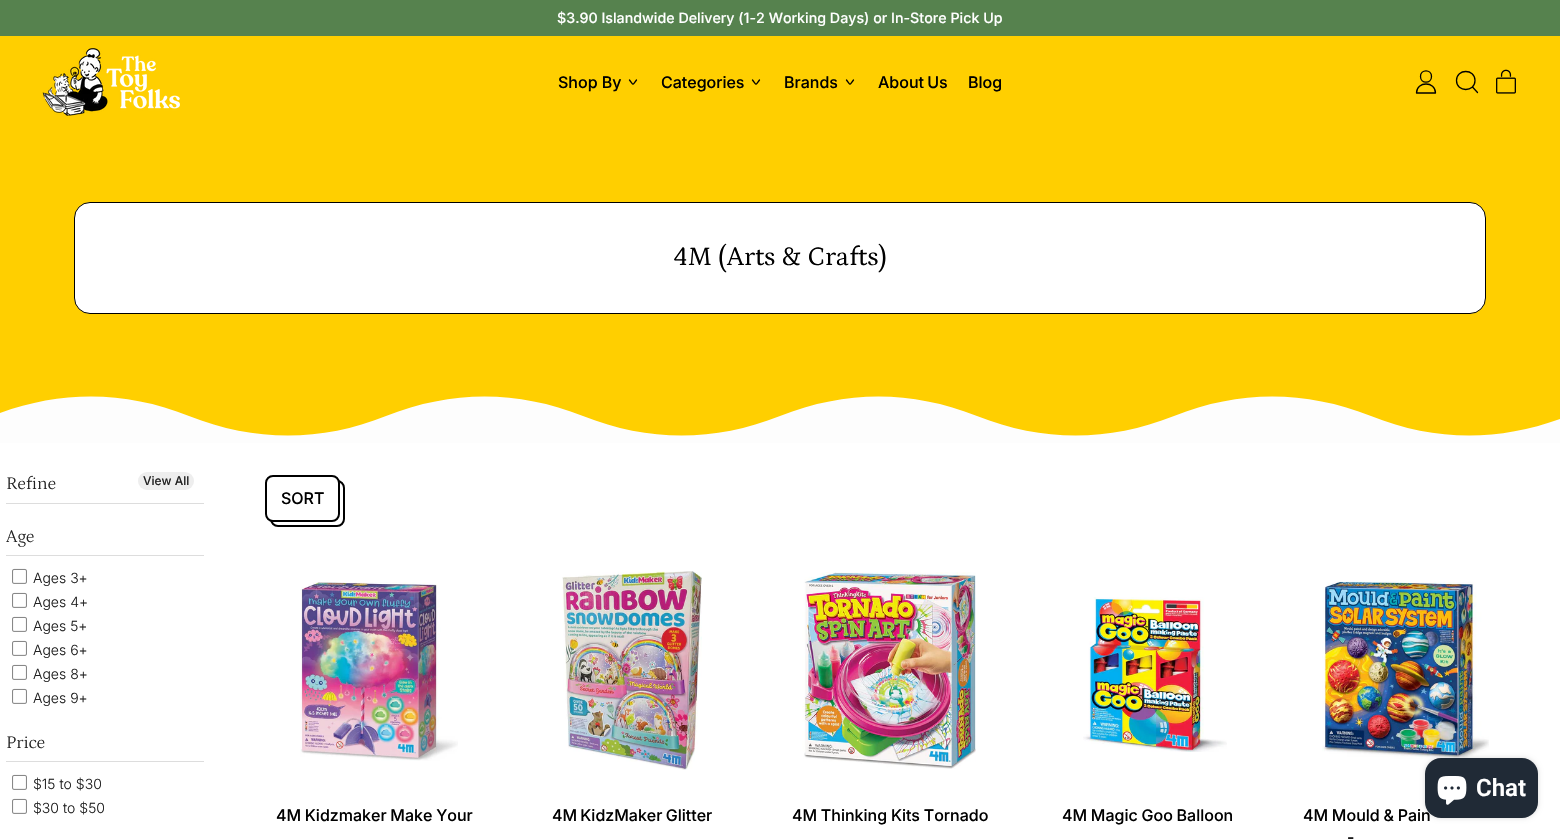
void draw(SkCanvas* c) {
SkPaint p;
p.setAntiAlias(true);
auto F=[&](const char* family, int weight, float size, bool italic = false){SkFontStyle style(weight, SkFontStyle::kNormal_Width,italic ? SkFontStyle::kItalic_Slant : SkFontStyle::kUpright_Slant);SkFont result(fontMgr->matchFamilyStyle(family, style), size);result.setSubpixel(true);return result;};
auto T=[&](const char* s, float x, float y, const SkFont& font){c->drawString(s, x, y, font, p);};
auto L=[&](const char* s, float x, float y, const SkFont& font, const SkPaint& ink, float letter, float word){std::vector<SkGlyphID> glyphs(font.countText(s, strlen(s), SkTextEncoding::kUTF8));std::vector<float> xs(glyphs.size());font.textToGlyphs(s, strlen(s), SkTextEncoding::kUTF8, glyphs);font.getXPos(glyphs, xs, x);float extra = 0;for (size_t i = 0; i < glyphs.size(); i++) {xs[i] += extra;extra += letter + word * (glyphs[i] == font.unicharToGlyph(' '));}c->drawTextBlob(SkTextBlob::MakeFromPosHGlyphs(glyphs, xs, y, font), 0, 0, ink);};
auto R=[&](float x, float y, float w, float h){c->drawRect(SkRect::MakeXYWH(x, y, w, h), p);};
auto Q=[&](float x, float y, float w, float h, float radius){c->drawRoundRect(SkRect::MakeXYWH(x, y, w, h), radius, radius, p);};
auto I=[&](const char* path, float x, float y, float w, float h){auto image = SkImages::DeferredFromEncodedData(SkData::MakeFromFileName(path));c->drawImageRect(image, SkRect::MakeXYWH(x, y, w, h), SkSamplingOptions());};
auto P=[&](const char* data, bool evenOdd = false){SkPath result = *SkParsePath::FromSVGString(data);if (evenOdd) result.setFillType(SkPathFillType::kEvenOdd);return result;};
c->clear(0xffffcf00);
p.setColor(0xff56824e);
R(0,0,1560,36);
auto f1 = F("Inter",500,14.25);
p.setColor(0xffffffff);
T("$3.90 Islandwide Delivery (1-2 Working Days) or In-Store Pick Up",557,23,f1);
I("1.png",42,48,138,68);
auto f2 = F("Inter",500,16);
p.setColor(0xff000000);
T("Shop By",558,88,f2);
p.setStroke(true);
p.setStrokeWidth(1.3);
p.setStrokeCap(SkPaint::kRound_Cap);
p.setStrokeJoin(SkPaint::kRound_Join);
c->drawPath(P("M629.5 80c4.5 5.5 2.5 5.5 7 0"),p);
p.setStroke(false);
T("Categories",661,88,f2);
p.setStroke(true);
c->drawPath(P("M752.5 80c4.5 5.5 2.5 5.5 7 0"),p);
p.setStroke(false);
T("Brands",784,88,f2);
p.setStroke(true);
c->drawPath(P("M846.5 80c4.5 5.5 2.5 5.5 7 0"),p);
p.setStroke(false);
L("About Us",878,88,f2,p,0,-1);
T("Blog",968,88,f2);
p.setStroke(true);
c->drawPath(P("M1420.5 76.5c0 7.5 11 7.5 11 0c0-7.5-11-7.5-11 0zm-4 16.5c0-12 19-12 19 0z"),p);
c->drawPath(P("M1456.5 80.5c0 12 18.5 12 18.5 0c0-12-18.5-12-18.5 0zm21 12l-5-5.5"),p);
I("2.png",1496,69,20,25);
p.setStroke(false);
p.setColor(0xffffffff);
c->drawRoundRect(SkRect::MakeXYWH(74.5,202.5,1411,111),15.5,15.5,p);
p.setStroke(true);
p.setStrokeWidth(1);
p.setStrokeCap(SkPaint::kButt_Cap);
p.setStrokeJoin(SkPaint::kMiter_Join);
p.setColor(0xff000000);
c->drawRoundRect(SkRect::MakeXYWH(74.5,202.5,1411,111),15.5,15.5,p);
auto f3 = F("Petrona",400,27);
p.setStroke(false);
T("4M (Arts & Crafts)",674,265,f3);
c->save();
c->clipRect(SkRect::MakeXYWH(0,390,1560,53));
p.setColor(0xfffdfdfd);
c->drawPath(P("M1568 416c-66 26-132 26-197 0c-66-26-132-26-197 0c-66 26-131 26-197 0c-66-26-131-26-197 0c-66 26-131 26-197 0c-66-26-131-26-197 0c-65 26-131 26-197 0c-65-26-131-26-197 0v30h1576z"),p);
c->restore();
p.setColor(0xffffffff);
R(0,443,1560,396);
p.setColor(0xffdddddd);
R(6,503,198,1);
auto f4 = F("Petrona",300,18);
p.setColor(0xff222222);
T("Refine",6,489,f4);
p.setColor(0xffeeeeee);
Q(138,472,56,18,9);
auto f5 = F("Inter",500,12);
p.setColor(0xff222222);
T("View All",143,485,f5);
p.setColor(0xffdddddd);
R(6,555,198,1);
p.setColor(0xff222222);
T("Age",6,542,f4);
I("3.png",12,568,15,16);
auto f6 = F("Inter",300,14);
T("Ages 3+",33,583,f6);
I("3.png",12,592,15,16);
T("Ages 4+",33,607,f6);
I("3.png",12,616,15,16);
T("Ages 5+",33,631,f6);
I("3.png",12,640,15,16);
T("Ages 6+",33,655,f6);
I("3.png",12,664,15,16);
T("Ages 8+",33,679,f6);
I("3.png",12,688,15,16);
T("Ages 9+",33,703,f6);
p.setColor(0xffdddddd);
R(6,761,198,1);
p.setColor(0xff222222);
T("Price",6,748,f4);
I("3.png",12,774,15,16);
T("$15 to $30",33,789,f6);
I("3.png",12,798,15,16);
T("$30 to $50",33,813,f6);
p.setStroke(true);
p.setStrokeWidth(2);
p.setColor(0xff000000);
c->drawRoundRect(SkRect::MakeXYWH(271,481,73,45),7,7,p);
p.setStroke(false);
p.setColor(0xffffffff);
c->drawRoundRect(SkRect::MakeXYWH(266,476,73,45),7,7,p);
p.setStroke(true);
p.setColor(0xff000000);
c->drawRoundRect(SkRect::MakeXYWH(266,476,73,45),7,7,p);
p.setStroke(false);
T("SORT",281,504,f2);
I("4.png",300,582,158,179);
L("4M Kidzmaker Make Your",276,821,f2,p,0,-.5);
I("5.png",562,571,140,199);
L("4M KidzMaker Glitter",552,821,f2,p,0,-1);
I("6.png",802,572,174,197);
L("4M Thinking Kits Tornado",792,821,f2,p,0,-.5);
I("7.png",1083,597,144,155);
L("4M Magic Goo Balloon",1062,821,f2,p,0,-.5);
I("8.png",1322,581,167,178);
L("4M Mould & Pain",1303,821,f2,p,0,-.5);
L("-",1347,843,f2,p,0,-1);
p.setColor(0x26000000);
p.setMaskFilter(SkMaskFilter::MakeBlur(kNormal_SkBlurStyle, 2.5));
c->drawRoundRect(SkRect::MakeXYWH(1425,758,113,60),16,16,p);
p.setMaskFilter(nullptr);
p.setColor(0xff202a36);
Q(1425,758,113,60,16);
I("9.png",1437,776,30,29);
auto f7 = F("Roboto",600,24);
p.setColor(0xffffffff);
T("Chat",1476,796,f7);
}
